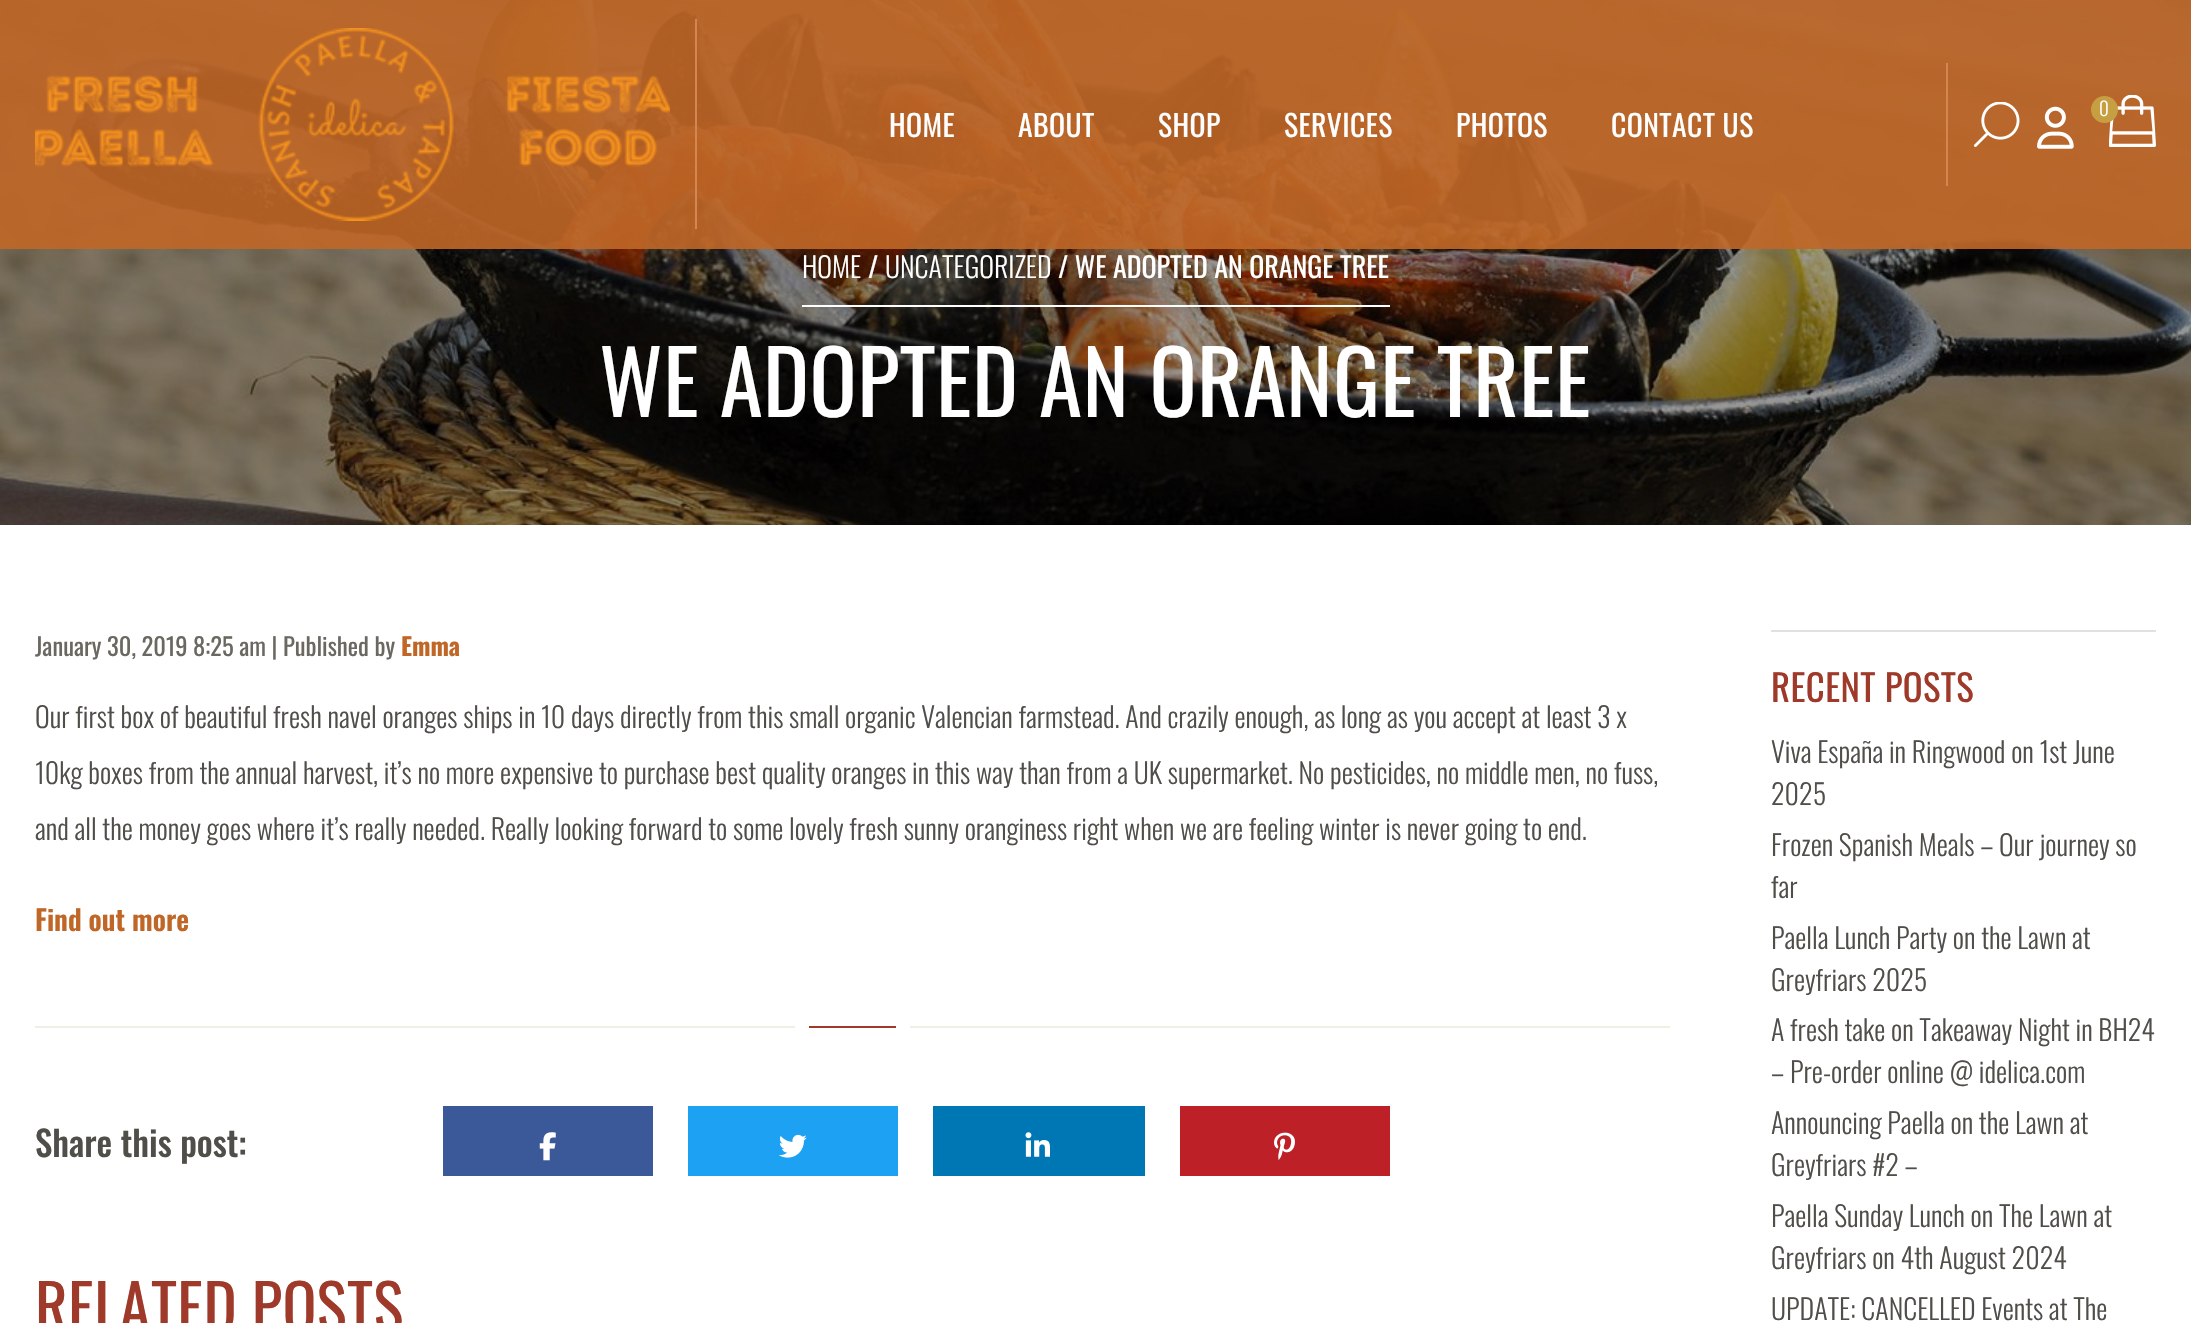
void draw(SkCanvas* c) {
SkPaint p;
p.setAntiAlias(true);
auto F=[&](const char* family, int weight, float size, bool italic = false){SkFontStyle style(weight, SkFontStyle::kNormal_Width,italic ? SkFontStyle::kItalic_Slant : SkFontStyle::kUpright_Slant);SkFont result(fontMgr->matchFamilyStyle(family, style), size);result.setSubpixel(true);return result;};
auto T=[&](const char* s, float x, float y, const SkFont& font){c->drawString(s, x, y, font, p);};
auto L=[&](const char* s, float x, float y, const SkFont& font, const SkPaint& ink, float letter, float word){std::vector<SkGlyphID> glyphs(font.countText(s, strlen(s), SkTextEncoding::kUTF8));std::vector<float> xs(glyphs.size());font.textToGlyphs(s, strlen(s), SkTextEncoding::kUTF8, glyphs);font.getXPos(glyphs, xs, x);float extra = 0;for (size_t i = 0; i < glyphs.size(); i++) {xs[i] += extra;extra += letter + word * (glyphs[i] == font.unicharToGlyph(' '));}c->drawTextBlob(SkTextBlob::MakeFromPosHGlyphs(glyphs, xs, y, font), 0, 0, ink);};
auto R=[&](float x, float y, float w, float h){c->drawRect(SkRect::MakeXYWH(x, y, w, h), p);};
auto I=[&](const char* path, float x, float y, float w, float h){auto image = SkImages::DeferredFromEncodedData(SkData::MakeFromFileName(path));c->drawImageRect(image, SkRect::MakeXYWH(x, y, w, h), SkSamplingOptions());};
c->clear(0xffffffff);
I("5.png",0,0,2191,525);
p.setColor(0xe6c06626);
R(0,0,2191,249);
I("1.png",35,28,635,193);
p.setColor(0xffd3864f);
R(695,19,2,210);
R(1946,63,2,123);
I("2.png",1974,102,46,45);
I("3.png",2037,106,37,43);
I("4.png",2109,95,47,52);
p.setColor(0xffc69f42);
c->drawCircle(2104.5,109.5,13.5,p);
auto f1 = F("Oswald",300,19);
p.setColor(0xffffffff);
T("0",2099,116,f1);
auto f2 = F("Oswald",400,29.75);
L("HOME",889,137,f2,p,.4,0);
L("ABOUT",1018,137,f2,p,.4,0);
L("SHOP",1158,137,f2,p,.4,0);
L("SERVICES",1284,137,f2,p,.4,0);
L("PHOTOS",1456,137,f2,p,.4,0);
L("CONTACT US",1611,137,f2,p,.4,0);
R(802,305,588,2);
auto f3 = F("Oswald",300,28);
T("HOME",802,278,f3);
auto f4 = F("Oswald",400,28);
T("/",868,278,f4);
T("UNCATEGORIZED",885,278,f3);
T("/ WE ADOPTED AN ORANGE TREE",1058,278,f4);
auto f5 = F("Oswald",400,87.5);
L("WE ADOPTED AN ORANGE TREE",599,417,f5,p,.4,0);
auto f6 = F("Oswald",400,24.5);
p.setColor(0xff6a6861);
T("January 30, 2019 8:25 am | Published by",35,656,f6);
auto f7 = F("Oswald",700,24.5);
p.setColor(0xffc06626);
T("Emma",401,656,f7);
p.setColor(0xff4f4e49);
T("Our first box of beautiful fresh navel oranges ships in 10 days directly from this small organic Valencian farmstead. And crazily enough, as long as you accept at least 3 x",35,728,f3);
T("10kg boxes from the annual harvest, it’s no more expensive to purchase best quality oranges in this way than from a UK supermarket. No pesticides, no middle men, no fuss,",35,784,f3);
T("and all the money goes where it’s really needed. Really looking forward to some lovely fresh sunny oranginess right when we are feeling winter is never going to end.",35,840,f3);
auto f8 = F("Oswald",600,28);
p.setColor(0xffc06626);
T("Find out more",35,931,f8);
p.setColor(0xfff0efe4);
R(35,1026,1635,2);
p.setStroke(true);
p.setStrokeWidth(14);
p.setColor(0xffffffff);
c->drawRect(SkRect::MakeXYWH(802,1019,101,15),p);
p.setStroke(false);
p.setColor(0xff9f3a2a);
R(809,1026,87,2);
auto f9 = F("Oswald",500,35);
p.setColor(0xff4f4e49);
T("Share this post:",35,1157,f9);
p.setColor(0xff3b5998);
R(443,1106,210,70);
I("6.png",539,1132,17,29);
p.setColor(0xff1da1f2);
R(688,1106,210,70);
I("7.png",779,1134,28,24);
p.setColor(0xff0077b5);
R(933,1106,212,70);
I("8.png",1025,1132,25,25);
p.setColor(0xffbd2026);
R(1180,1106,210,70);
I("9.png",1274,1132,21,28);
auto f10 = F("Oswald",400,63);
p.setColor(0xff9f3a2a);
L("RELATED POSTS",35,1332,f10,p,.4,0);
p.setColor(0xffe1e1e2);
R(1771,630,385,2);
auto f11 = F("Oswald",400,36.75);
p.setColor(0xff9f3a2a);
L("RECENT POSTS",1771,702,f11,p,.4,0);
p.setColor(0xff4f4e49);
T("Viva España in Ringwood on 1st June",1771,763,f3);
T("2025",1771,805,f3);
T("Frozen Spanish Meals – Our journey so",1771,856,f3);
T("far",1771,898,f3);
T("Paella Lunch Party on the Lawn at",1771,949,f3);
T("Greyfriars 2025",1771,991,f3);
T("A fresh take on Takeaway Night in BH24",1771,1041,f3);
T("– Pre-order online @ idelica.com",1771,1083,f3);
T("Announcing Paella on the Lawn at",1771,1134,f3);
T("Greyfriars #2 –",1771,1176,f3);
T("Paella Sunday Lunch on The Lawn at",1771,1227,f3);
T("Greyfriars on 4th August 2024",1771,1269,f3);
T("UPDATE: CANCELLED Events at The",1771,1320,f3);
}
